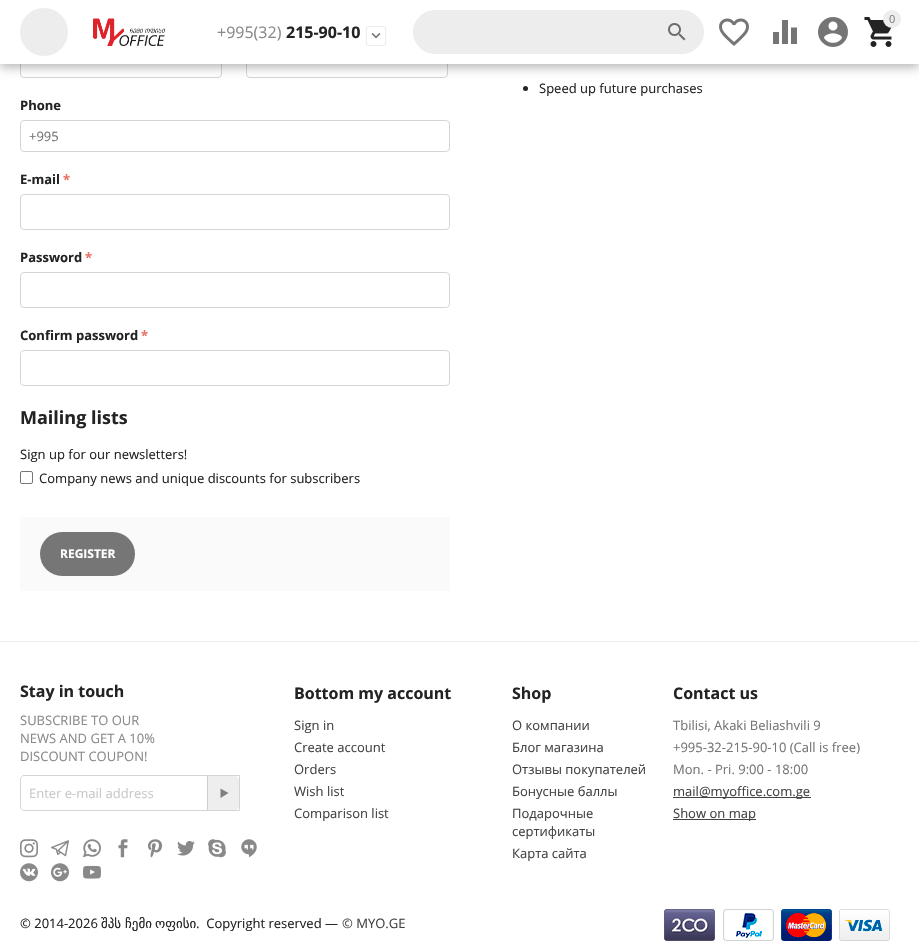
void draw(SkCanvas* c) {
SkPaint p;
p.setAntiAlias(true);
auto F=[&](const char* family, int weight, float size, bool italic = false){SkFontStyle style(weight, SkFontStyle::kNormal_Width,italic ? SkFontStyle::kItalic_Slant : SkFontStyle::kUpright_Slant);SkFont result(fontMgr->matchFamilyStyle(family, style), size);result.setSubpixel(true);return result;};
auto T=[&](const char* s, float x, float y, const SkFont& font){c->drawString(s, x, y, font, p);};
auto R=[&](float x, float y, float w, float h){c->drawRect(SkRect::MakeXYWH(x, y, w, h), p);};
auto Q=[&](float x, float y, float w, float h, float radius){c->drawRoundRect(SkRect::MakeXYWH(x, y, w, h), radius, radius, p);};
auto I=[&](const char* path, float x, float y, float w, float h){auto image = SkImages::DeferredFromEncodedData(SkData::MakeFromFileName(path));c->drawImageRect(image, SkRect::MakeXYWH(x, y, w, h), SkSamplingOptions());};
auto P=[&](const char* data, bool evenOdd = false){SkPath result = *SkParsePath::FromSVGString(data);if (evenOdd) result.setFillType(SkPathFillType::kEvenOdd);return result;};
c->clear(0xffffffff);
p.setStroke(true);
p.setStrokeWidth(1);
p.setColor(0xffd5d5d5);
c->drawRoundRect(SkRect::MakeXYWH(20.5,42.5,201,35),3.5,3.5,p);
c->drawRoundRect(SkRect::MakeXYWH(246.5,42.5,201,35),3.5,3.5,p);
p.setStroke(false);
p.setColor(0x4d000000);
p.setMaskFilter(SkMaskFilter::MakeBlur(kNormal_SkBlurStyle, 5));
c->drawRect(SkRect::MakeXYWH(0,3,919,64),p);
p.setMaskFilter(nullptr);
p.setColor(0xffffffff);
R(0,0,919,64);
p.setColor(0xffededed);
c->drawCircle(44,32,24,p);
I("1.png",93,18,72,28);
c->drawRoundRect(SkRect::MakeXYWH(413.5,10.5,290,43),21.5,21.5,p);
p.setStroke(true);
c->drawRoundRect(SkRect::MakeXYWH(413.5,10.5,290,43),21.5,21.5,p);
I("2.png",668,23,18,18);
I("3.png",719,18,30,28);
I("4.png",773,20,24,24);
I("5.png",818,17,30,30);
I("6.png",864,17,28,30);
p.setStroke(false);
c->drawCircle(892,19,9,p);
auto f1 = F("Open Sans",400,11);
p.setColor(0xff808080);
T("0",889,23,f1);
auto f2 = F("Open Sans",400,16);
p.setColor(0xff898989);
T("+995(32)",217,38,f2);
auto f3 = F("Open Sans",700,16);
p.setColor(0xff232323);
T("215-90-10",286,38,f3);
p.setStroke(true);
p.setColor(0xffededed);
c->drawRoundRect(SkRect::MakeXYWH(366.5,26.5,19,19),2.5,2.5,p);
I("7.png",371,33,10,6);
p.setStroke(false);
p.setColor(0xff232323);
c->drawCircle(525.5,88.5,2.5,p);
auto f4 = F("Open Sans",400,13);
T("Speed up future purchases",539,93,f4);
auto f5 = F("Open Sans",700,13);
T("Phone",20,110,f5);
p.setStroke(true);
p.setColor(0xffd5d5d5);
c->drawRoundRect(SkRect::MakeXYWH(20.5,120.5,429,31),3.5,3.5,p);
p.setStroke(false);
p.setColor(0xff757575);
T("+995",29,141,f4);
p.setColor(0xff232323);
T("E-mail",20,184,f5);
p.setColor(0xffea7162);
T("*",63,184,f5);
p.setStroke(true);
p.setColor(0xffd5d5d5);
c->drawRoundRect(SkRect::MakeXYWH(20.5,194.5,429,35),3.5,3.5,p);
p.setStroke(false);
p.setColor(0xff232323);
T("Password",20,262,f5);
p.setColor(0xffea7162);
T("*",85,262,f5);
p.setStroke(true);
p.setColor(0xffd5d5d5);
c->drawRoundRect(SkRect::MakeXYWH(20.5,272.5,429,35),3.5,3.5,p);
p.setStroke(false);
p.setColor(0xff232323);
T("Confirm password",20,340,f5);
p.setColor(0xffea7162);
T("*",141,340,f5);
p.setStroke(true);
p.setColor(0xffd5d5d5);
c->drawRoundRect(SkRect::MakeXYWH(20.5,350.5,429,35),3.5,3.5,p);
auto f6 = F("Open Sans",700,18);
p.setStroke(false);
p.setColor(0xff232323);
T("Mailing lists",20,424,f6);
T("Sign up for our newsletters!",20,459,f4);
p.setStroke(true);
p.setColor(0xff767676);
c->drawRoundRect(SkRect::MakeXYWH(20.5,471.5,12,12),1.5,1.5,p);
p.setStroke(false);
p.setColor(0xff232323);
T("Company news and unique discounts for subscribers",39,483,f4);
p.setColor(0xfffafafa);
R(20,517,430,74);
p.setColor(0xff767676);
Q(40,532,95,44,22);
auto f7 = F("Open Sans",700,12);
p.setColor(0xffffffff);
T("REGISTER",60,558,f7);
p.setColor(0xffededed);
R(0,641,919,1);
p.setColor(0xff232323);
T("Stay in touch",20,697,f3);
p.setColor(0xff898989);
T("SUBSCRIBE TO OUR",20,725,f4);
T("NEWS AND GET A 10%",20,743,f4);
T("DISCOUNT COUPON!",20,761,f4);
p.setStroke(true);
p.setColor(0xffd5d5d5);
c->drawPath(P("M24 775.5h215.5v35h-215.5c-2 0-3.5-1.5-3.5-3.5v-28c0-2 1.5-3.5 3.5-3.5z"),p);
p.setStroke(false);
p.setColor(0xffc9c9c9);
T("Enter e-mail address",29,798,f4);
p.setColor(0xffeeeeee);
c->drawPath(P("M207 776h28c2 0 4 2 4 4v26c0 2-2 4-4 4h-28z"),p);
p.setColor(0xffcdcdcd);
R(207,776,1,34);
p.setColor(0xff808080);
c->drawPath(P("M220.5 788.5l8 4.5l-8 5z"),p);
I("8.png",20,839,18,19);
I("9.png",51,840,18,17);
I("10.png",83,839,18,19);
I("11.png",118,839,10,19);
I("12.png",148,839,15,19);
I("13.png",177,841,18,15);
I("14.png",208,839,18,19);
I("15.png",241,839,16,19);
I("16.png",20,863,18,19);
I("17.png",51,863,18,19);
I("18.png",83,865,18,14);
p.setColor(0xff232323);
T("Bottom my account",294,699,f3);
p.setColor(0xff434343);
T("Sign in",294,730,f4);
T("Create account",294,752,f4);
T("Orders",294,774,f4);
T("Wish list",294,796,f4);
T("Comparison list",294,818,f4);
p.setColor(0xff232323);
T("Shop",512,699,f3);
p.setColor(0xff434343);
T("О компании",512,730,f4);
T("Блог магазина",512,752,f4);
T("Отзывы покупателей",512,774,f4);
T("Бонусные баллы",512,796,f4);
T("Подарочные",512,818,f4);
T("сертификаты",512,836,f4);
T("Карта сайта",512,858,f4);
p.setColor(0xff232323);
T("Contact us",673,699,f3);
p.setColor(0xff757575);
T("Tbilisi, Akaki Beliashvili 9",673,730,f4);
T("+995-32-215-90-10 (Call is free)",673,752,f4);
T("Mon. - Pri. 9:00 - 18:00",673,774,f4);
p.setColor(0xff434343);
R(673,797,138,1);
T("mail@myoffice.com.ge",673,796,f4);
R(673,819,83,1);
T("Show on map",673,818,f4);
p.setColor(0xff232323);
T("© 2014-2026",20,928,f4);
auto f8 = F("DejaVu Sans",400,13);
T("შპს",101,928,f8);
T("ჩემი",125,928,f8);
T("ოფისი",155,928,f8);
T(".  Copyright reserved —",196,928,f4);
p.setColor(0xff434343);
T("© MYO.GE",342,928,f4);
I("19.png",664,909,51,32);
I("20.png",723,909,51,32);
I("21.png",781,909,51,32);
I("22.png",839,909,51,32);
}
